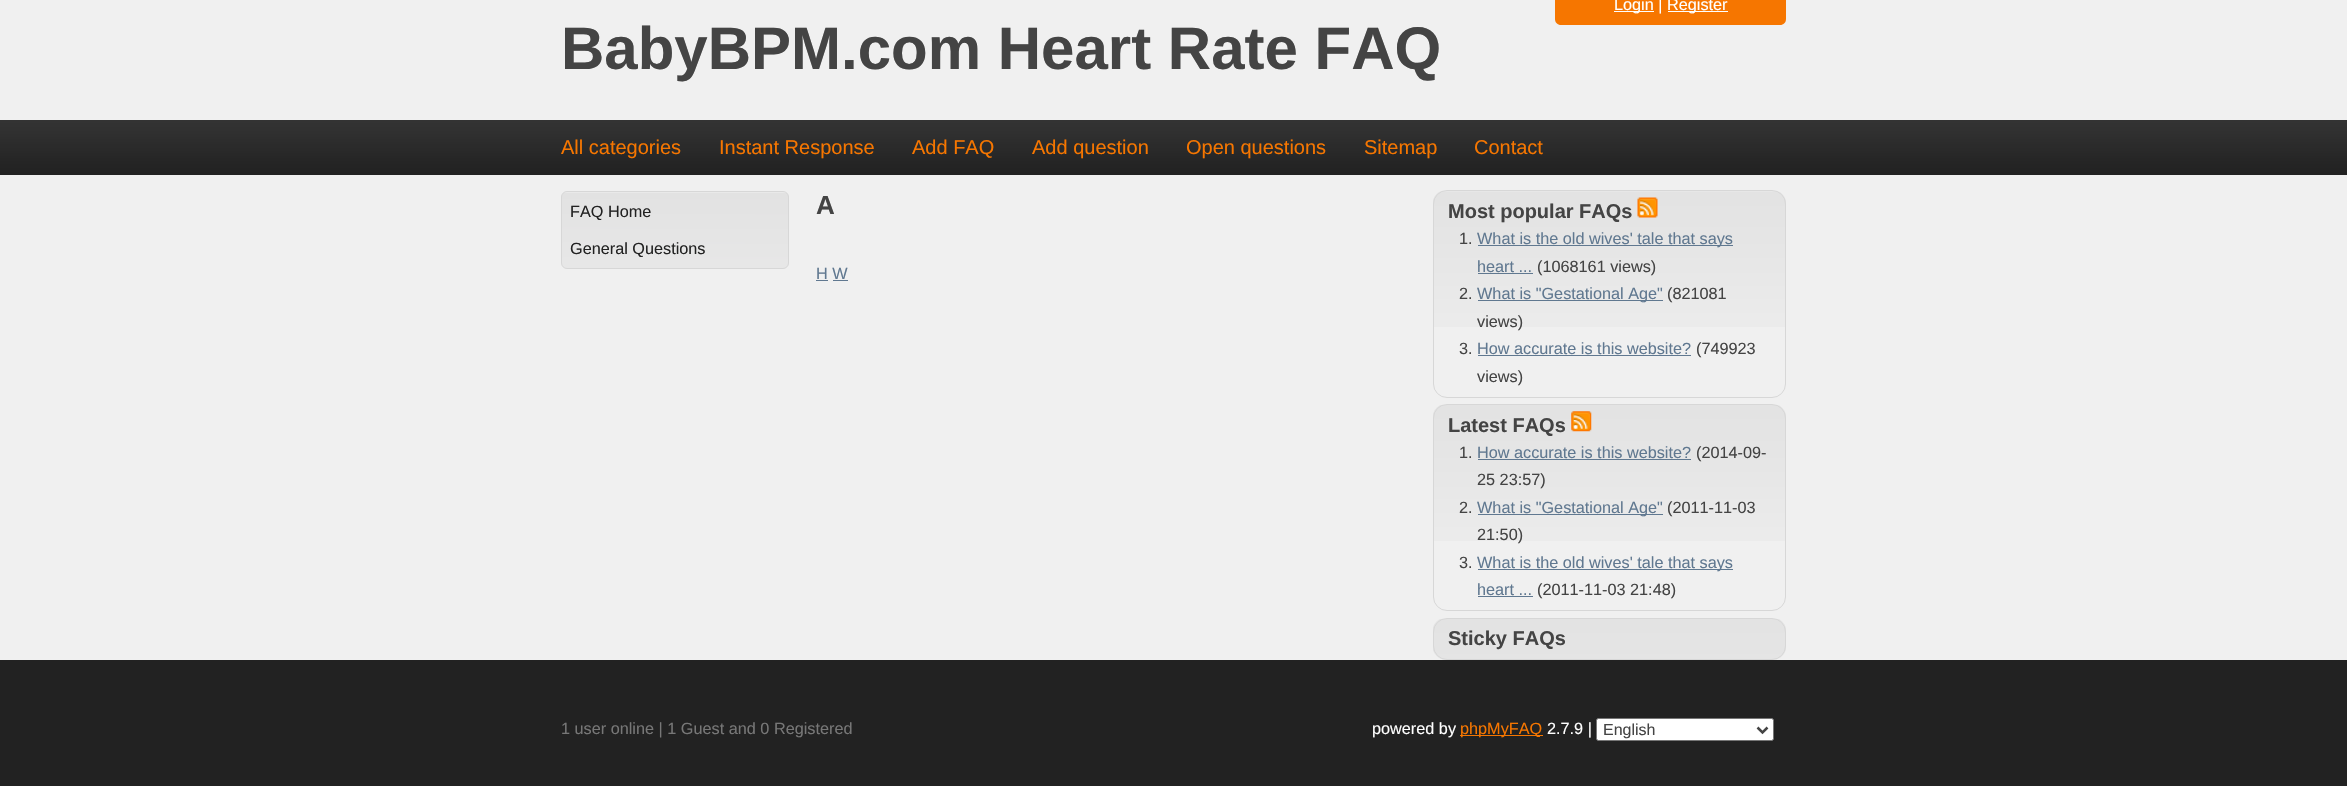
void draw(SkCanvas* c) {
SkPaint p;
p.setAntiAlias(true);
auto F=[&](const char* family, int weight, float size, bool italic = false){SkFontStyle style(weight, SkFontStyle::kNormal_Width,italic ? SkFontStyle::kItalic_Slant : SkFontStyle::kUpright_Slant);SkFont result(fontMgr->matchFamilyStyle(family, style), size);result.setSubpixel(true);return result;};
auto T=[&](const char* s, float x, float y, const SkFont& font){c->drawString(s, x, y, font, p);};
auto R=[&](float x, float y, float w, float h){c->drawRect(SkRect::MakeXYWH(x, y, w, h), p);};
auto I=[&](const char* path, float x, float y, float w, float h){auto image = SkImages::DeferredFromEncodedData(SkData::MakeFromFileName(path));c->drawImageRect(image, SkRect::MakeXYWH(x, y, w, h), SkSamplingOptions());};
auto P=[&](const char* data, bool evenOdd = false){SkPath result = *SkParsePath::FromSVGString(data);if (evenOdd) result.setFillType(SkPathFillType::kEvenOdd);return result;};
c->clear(0xfff0f0f0);
p.setColor(0xfff67600);
c->drawPath(P("M1555-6h231v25c0 3.5-2.5 6-6 6h-219c-3.5 0-6-2.5-6-6z"),p);
p.setColor(0xffffffff);
R(1614,11,40,1);
auto f1 = F("Liberation Sans",400,16.25);
T("Login |",1614,10,f1);
R(1668,11,60,1);
T("Register",1667,10,f1);
auto f2 = F("Liberation Sans",700,60);
p.setColor(0xff444444);
T("BabyBPM.com Heart Rate FAQ",561,69,f2);
I("1.png",0,120,2347,55);
auto f3 = F("Liberation Sans",400,20);
p.setColor(0xfff67600);
T("All categories",561,154,f3);
T("Instant Response",719,154,f3);
T("Add FAQ",912,154,f3);
T("Add question",1032,154,f3);
T("Open questions",1186,154,f3);
T("Sitemap",1364,154,f3);
T("Contact",1474,154,f3);
I("2.png",561,192,228,77);
p.setStroke(true);
p.setStrokeWidth(1);
p.setColor(0xffd7d7d7);
c->drawRoundRect(SkRect::MakeXYWH(561.5,191.5,227,77),5.5,5.5,p);
p.setStroke(false);
p.setColor(0xff222222);
T("FAQ Home",570,217,f1);
T("General Questions",570,254,f1);
auto f4 = F("Liberation Sans",700,26);
p.setColor(0xff444444);
T("A",816,214,f4);
p.setColor(0xff607890);
T("H W",816,279,f1);
R(816,280,12,1);
R(833,280,15,1);
I("3.png",1433,191,353,136);
p.setStroke(true);
p.setColor(0xffd7d7d7);
c->drawRoundRect(SkRect::MakeXYWH(1433.5,190.5,352,207),13.5,13.5,p);
auto f5 = F("Liberation Sans",700,20);
p.setStroke(false);
p.setColor(0xff444444);
T("Most popular FAQs",1448,218,f5);
I("4.png",1637,197,21,21);
T("1.",1459,244,f1);
p.setColor(0xff607890);
R(1478,245,255,1);
T("What is the old wives' tale that says",1477,244,f1);
T("heart ...",1477,272,f1);
R(1478,273,55,1);
p.setColor(0xff444444);
T("(1068161 views)",1537,272,f1);
T("2.",1459,299,f1);
p.setColor(0xff607890);
R(1478,300,185,1);
T("What is \"Gestational Age\"",1477,299,f1);
p.setColor(0xff444444);
T("(821081",1667,299,f1);
T("views)",1477,327,f1);
T("3.",1459,354,f1);
p.setColor(0xff607890);
T("How accurate is this website?",1477,354,f1);
R(1478,355,213,1);
p.setColor(0xff444444);
T("(749923",1696,354,f1);
T("views)",1477,382,f1);
I("5.png",1433,405,353,136);
p.setStroke(true);
p.setColor(0xffd7d7d7);
c->drawRoundRect(SkRect::MakeXYWH(1433.5,404.5,352,206),13.5,13.5,p);
p.setStroke(false);
p.setColor(0xff444444);
T("Latest FAQs",1448,432,f5);
I("6.png",1571,411,21,21);
T("1.",1459,458,f1);
p.setColor(0xff607890);
T("How accurate is this website?",1477,458,f1);
R(1478,459,213,1);
p.setColor(0xff444444);
T("(2014-09-",1696,458,f1);
T("25 23:57)",1477,485,f1);
T("2.",1459,513,f1);
p.setColor(0xff607890);
R(1478,514,185,1);
T("What is \"Gestational Age\"",1477,513,f1);
p.setColor(0xff444444);
T("(2011-11-03",1667,513,f1);
T("21:50)",1477,540,f1);
T("3.",1459,568,f1);
p.setColor(0xff607890);
R(1478,569,255,1);
T("What is the old wives' tale that says",1477,568,f1);
T("heart ...",1477,595,f1);
R(1478,596,55,1);
p.setColor(0xff444444);
T("(2011-11-03 21:48)",1537,595,f1);
I("7.png",1433,619,353,41);
p.setStroke(true);
p.setColor(0xffd7d7d7);
c->drawRoundRect(SkRect::MakeXYWH(1433.5,618.5,352,41),13.5,13.5,p);
p.setStroke(false);
p.setColor(0xff444444);
T("Sticky FAQs",1448,645,f5);
p.setColor(0xff222222);
R(0,660,2347,126);
p.setColor(0xff777777);
T("1 user online | 1 Guest and 0 Registered",561,734,f1);
p.setColor(0xffffffff);
T("powered by",1372,734,f1);
p.setColor(0xfff67600);
R(1460,735,83,1);
T("phpMyFAQ",1460,734,f1);
p.setColor(0xffffffff);
T("2.7.9 |",1547,734,f1);
c->drawRoundRect(SkRect::MakeXYWH(1596.5,718.5,177,22),2,2,p);
p.setStroke(true);
p.setColor(0xff767676);
c->drawRoundRect(SkRect::MakeXYWH(1596.5,718.5,177,22),2,2,p);
p.setStrokeWidth(2.5);
p.setColor(0xff444444);
c->drawPath(P("M1757.5 727.5l5 5l5-5"),p);
auto f6 = F("Liberation Sans",400,16);
p.setStroke(false);
T("English",1603,735,f6);
}
